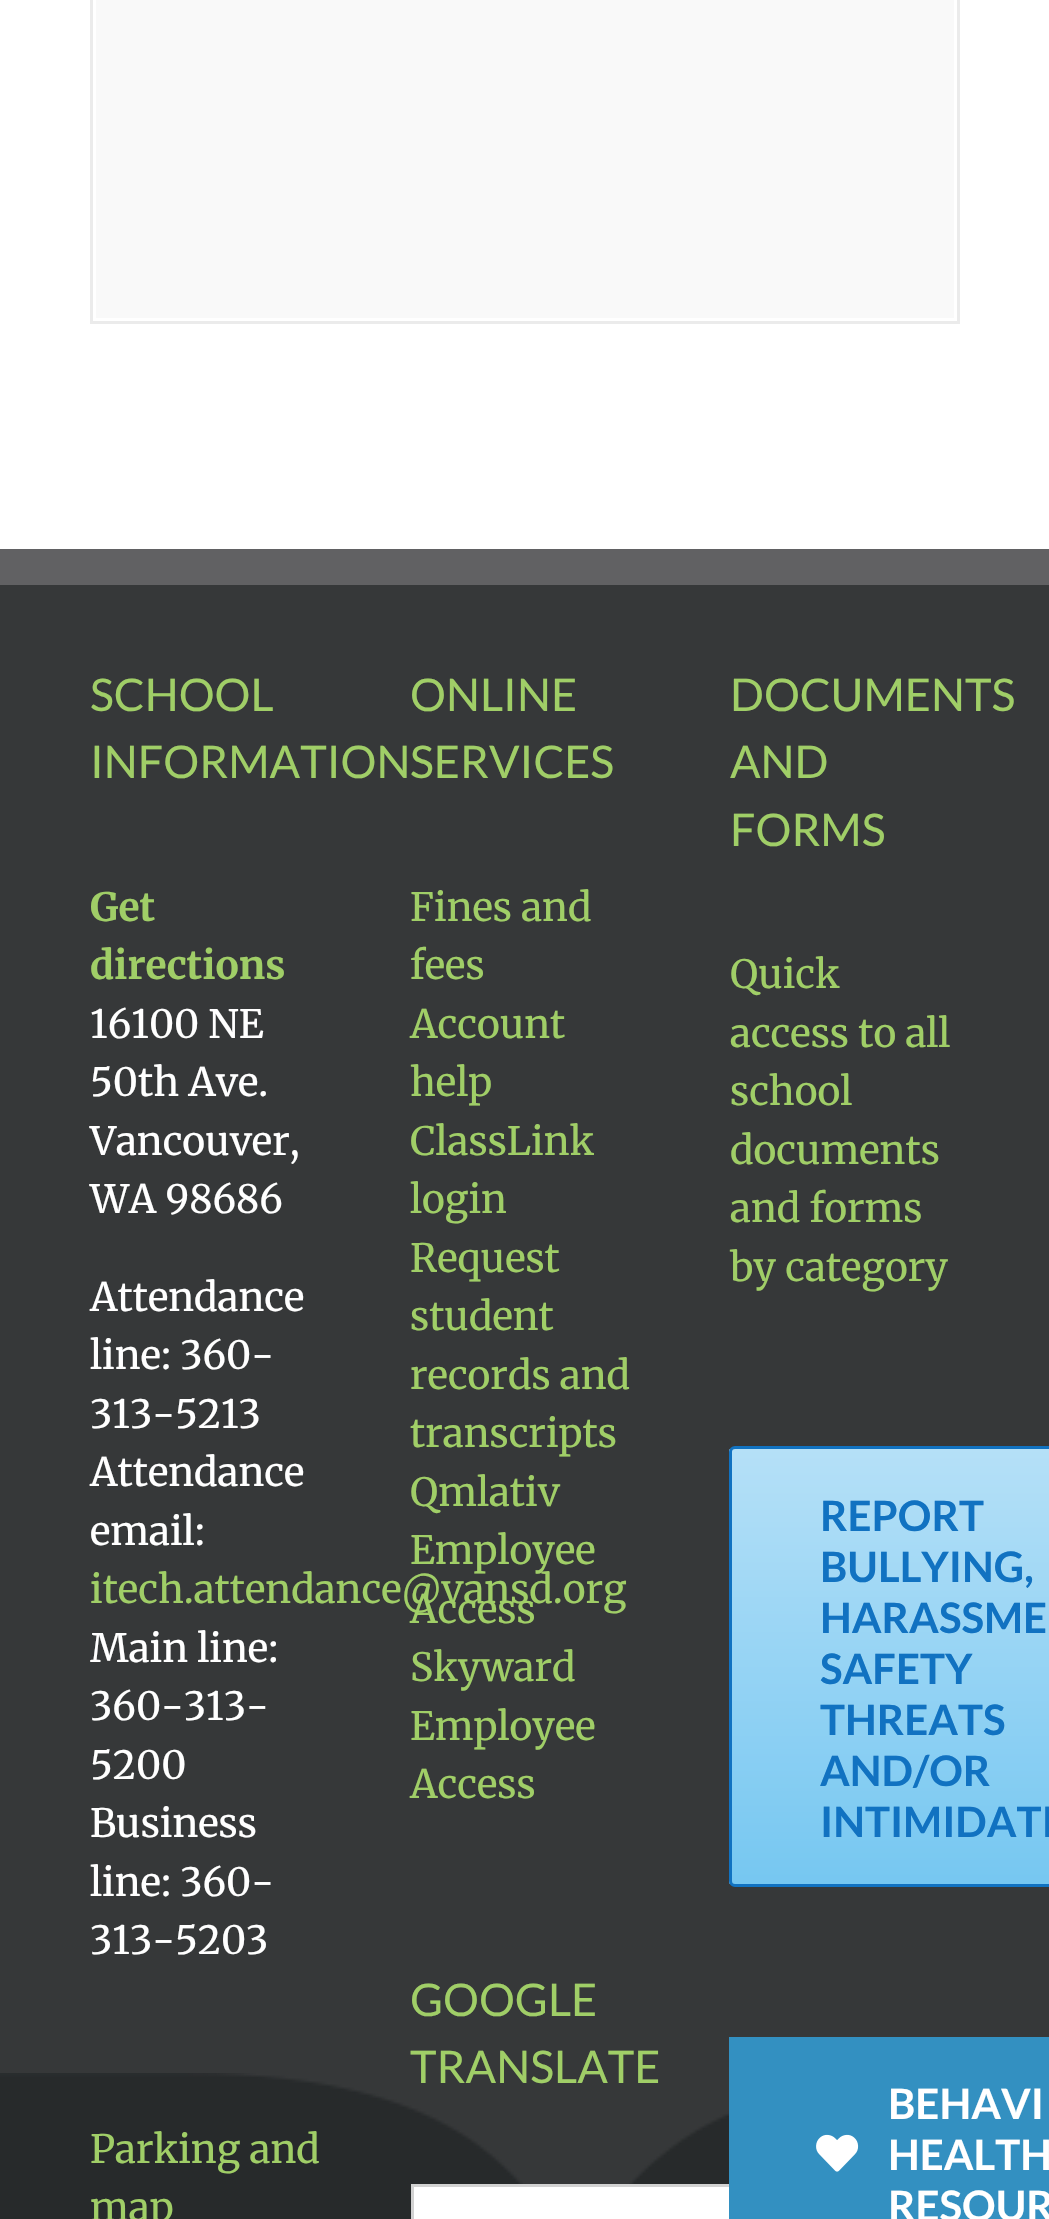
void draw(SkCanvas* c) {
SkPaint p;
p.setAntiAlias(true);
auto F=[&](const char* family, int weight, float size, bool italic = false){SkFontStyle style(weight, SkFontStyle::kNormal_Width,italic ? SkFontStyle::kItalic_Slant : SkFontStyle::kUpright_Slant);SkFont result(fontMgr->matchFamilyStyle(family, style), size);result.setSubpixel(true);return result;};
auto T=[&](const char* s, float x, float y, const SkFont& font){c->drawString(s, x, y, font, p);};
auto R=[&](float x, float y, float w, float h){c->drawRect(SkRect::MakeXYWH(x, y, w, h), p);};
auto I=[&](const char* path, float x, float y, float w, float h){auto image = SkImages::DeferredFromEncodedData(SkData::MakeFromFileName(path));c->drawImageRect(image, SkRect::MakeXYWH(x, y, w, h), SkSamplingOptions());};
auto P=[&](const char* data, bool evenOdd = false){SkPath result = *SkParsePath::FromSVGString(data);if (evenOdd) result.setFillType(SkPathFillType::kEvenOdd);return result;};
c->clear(0xffffffff);
p.setStroke(true);
p.setStrokeWidth(3);
p.setColor(0xffebebeb);
c->drawRect(SkRect::MakeXYWH(91.5,-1.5,867,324),p);
p.setStroke(false);
p.setColor(0xfff9f9f9);
R(96,0,858,318);
p.setColor(0xff363839);
R(0,585,1049,1599);
I("1.png",0,2073,729,146);
p.setColor(0xff616163);
R(0,549,1049,36);
auto f1 = F("Lato",400,45);
p.setColor(0xffa0ce67);
T("SCHOOL",90,711,f1);
T("INFORMATION",90,778,f1);
auto f2 = F("Merriweather",700,39);
T("Get",90,921,f2);
T("directions",90,979,f2);
auto f3 = F("Merriweather",400,39);
p.setColor(0xffffffff);
T("16100 NE",90,1038,f3);
T("50th Ave.",90,1096,f3);
T("Vancouver,",90,1155,f3);
T("WA 98686",90,1213,f3);
T("Attendance",90,1311,f3);
T("line: 360-",90,1369,f3);
T("313-5213",90,1428,f3);
T("Attendance",90,1486,f3);
T("email:",90,1545,f3);
p.setColor(0xffa0ce67);
T("itech.attendance@vansd.org",90,1603,f3);
p.setColor(0xffffffff);
T("Main line:",90,1662,f3);
T("360-313-",90,1720,f3);
T("5200",90,1779,f3);
T("Business",90,1837,f3);
T("line: 360-",90,1896,f3);
T("313-5203",90,1954,f3);
p.setColor(0xffa0ce67);
T("Parking and",90,2163,f3);
T("map",90,2221,f3);
T("ONLINE",410,711,f1);
T("SERVICES",410,778,f1);
T("Fines and",410,921,f3);
T("fees",410,979,f3);
T("Account",410,1038,f3);
T("help",410,1096,f3);
T("ClassLink",410,1155,f3);
T("login",410,1213,f3);
T("Request",410,1272,f3);
T("student",410,1330,f3);
T("records and",410,1389,f3);
T("transcripts",410,1447,f3);
T("Qmlativ",410,1506,f3);
T("Employee",410,1564,f3);
T("Access",410,1623,f3);
T("Skyward",410,1681,f3);
T("Employee",410,1740,f3);
T("Access",410,1798,f3);
T("GOOGLE",410,2016,f1);
T("TRANSLATE",410,2083,f1);
p.setColor(0xffffffff);
R(414,2187,315,32);
p.setStroke(true);
p.setColor(0xffd2d2d2);
c->drawRect(SkRect::MakeXYWH(412.5,2185.5,369,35),p);
p.setStroke(false);
p.setColor(0xffa0ce67);
T("DOCUMENTS",730,711,f1);
T("AND",730,778,f1);
T("FORMS",730,846,f1);
T("Quick",730,988,f3);
T("access to all",730,1047,f3);
T("school",730,1105,f3);
T("documents",730,1164,f3);
T("and forms",730,1222,f3);
T("by category",730,1281,f3);
c->save();
c->clipPath(P("M735 1446h468c3.5 0 6 2.5 6 6v429c0 3.5-2.5 6-6 6h-468c-3.5 0-6-2.5-6-6v-429c0-3.5 2.5-6 6-6z"),true);
{
const SkColor colors[] = {0xff76c7f1,0xffb5e0f7};
const float stops[] = {0,1};
const SkPoint ends[] = {{969,1884}, {969,1449}};
p.setShader(SkGradientShader::MakeLinear(ends, colors, stops, 2, SkTileMode::kClamp));
p.setAlpha(255);
}
R(729,1449,320,435);
c->restore();
p.setStroke(true);
p.setShader(nullptr);
p.setColor(0xff1172c1);
c->drawRoundRect(SkRect::MakeXYWH(730.5,1447.5,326,438),4.5,4.5,p);
auto f4 = F("Lato",700,42);
p.setStroke(false);
T("REPORT",820,1531,f4);
T("BULLYING,",820,1582,f4);
T("HARASSME",820,1633,f4);
T("SAFETY",820,1684,f4);
T("THREATS",820,1735,f4);
T("AND/OR",820,1786,f4);
T("INTIMIDATI",820,1837,f4);
p.setColor(0xff3390c1);
R(729,2037,320,182);
I("2.png",816,2134,43,38);
p.setColor(0xffffffff);
T("BEHAVI",888,2119,f4);
T("HEALTH",888,2170,f4);
T("RESOUR",888,2221,f4);
}
